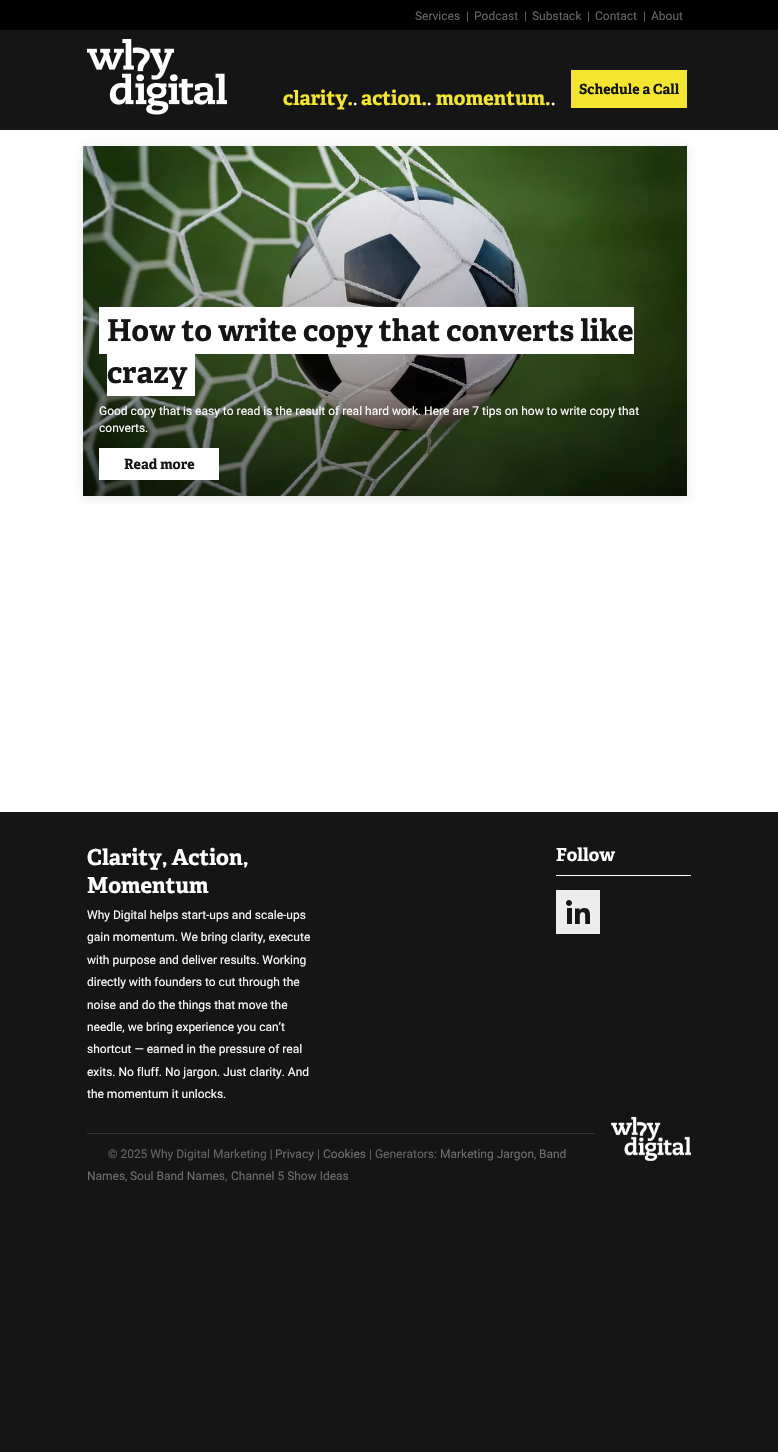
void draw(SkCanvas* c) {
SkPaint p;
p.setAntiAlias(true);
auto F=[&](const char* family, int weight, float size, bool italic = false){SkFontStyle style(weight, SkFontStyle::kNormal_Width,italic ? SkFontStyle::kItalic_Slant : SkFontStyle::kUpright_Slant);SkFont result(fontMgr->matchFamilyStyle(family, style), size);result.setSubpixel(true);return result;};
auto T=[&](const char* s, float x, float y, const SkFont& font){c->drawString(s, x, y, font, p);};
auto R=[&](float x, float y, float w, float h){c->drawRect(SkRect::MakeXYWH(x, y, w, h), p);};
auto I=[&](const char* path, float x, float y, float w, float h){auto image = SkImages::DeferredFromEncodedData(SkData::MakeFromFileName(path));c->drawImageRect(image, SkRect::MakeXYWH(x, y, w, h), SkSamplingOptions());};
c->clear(0xffffffff);
p.setColor(0xff000000);
R(0,0,778,30);
auto f1 = F("Roboto",400,12);
p.setColor(0xff666666);
T("Services",415,20,f1);
T("|",466,20,f1);
T("Podcast",474,20,f1);
T("|",524,20,f1);
T("Substack",532,20,f1);
T("|",587,20,f1);
T("Contact",595,20,f1);
T("|",643,20,f1);
T("About",651,20,f1);
p.setColor(0xff151515);
R(0,30,778,100);
I("1.png",87,39,140,76);
auto f2 = F("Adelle",700,20);
p.setColor(0xfff3e530);
T("clarity.",283,105,f2);
auto f3 = F("Adelle",400,20);
p.setColor(0xffffffff);
T(".",353,105,f3);
p.setColor(0xfff3e530);
T("action.",361,105,f2);
p.setColor(0xffffffff);
T(".",427,105,f3);
p.setColor(0xfff3e530);
T("momentum.",436,105,f2);
p.setColor(0xffffffff);
T(".",551,105,f3);
p.setColor(0xfff3e530);
R(571,70,116,38);
auto f4 = F("Adelle",700,14);
p.setColor(0xff151515);
T("Schedule a Call",579,94,f4);
p.setColor(0x1a000000);
p.setMaskFilter(SkMaskFilter::MakeBlur(kNormal_SkBlurStyle, 5));
c->drawRect(SkRect::MakeXYWH(83,148,604,350),p);
p.setMaskFilter(nullptr);
I("2.png",83,146,604,350);
p.setColor(0xffffffff);
R(99,307,535,47);
auto f5 = F("Adelle",700,30);
p.setColor(0xff151515);
T("How to write copy that converts like",107,341,f5);
p.setColor(0xffffffff);
R(107,354,88,42);
p.setColor(0xff151515);
T("crazy",107,383,f5);
p.setColor(0xffffffff);
T("Good copy that is easy to read is the result of real hard work. Here are 7 tips on how to write copy that",99,415,f1);
T("converts.",99,432,f1);
R(99,448,120,32);
p.setColor(0xff151515);
T("Read more",124,469,f4);
R(0,812,778,640);
auto f6 = F("Adelle",700,22);
p.setColor(0xffffffff);
T("Clarity, Action,",87,865,f6);
T("Momentum",87,893,f6);
T("Why Digital helps start-ups and scale-ups",87,919,f1);
T("gain momentum. We bring clarity, execute",87,941,f1);
T("with purpose and deliver results. Working",87,964,f1);
T("directly with founders to cut through the",87,986,f1);
T("noise and do the things that move the",87,1009,f1);
T("needle, we bring experience you can’t",87,1031,f1);
T("shortcut — earned in the pressure of real",87,1053,f1);
T("exits. No fluff. No jargon. Just clarity. And",87,1076,f1);
T("the momentum it unlocks.",87,1098,f1);
R(556,875,135,1);
auto f7 = F("Adelle",700,18);
T("Follow",556,861,f7);
I("3.png",556,890,44,44);
I("4.png",611,1116,80,45);
p.setColor(0xff333333);
R(87,1133,508,1);
p.setColor(0xff666666);
T("© 2025 Why Digital Marketing |",108,1158,f1);
p.setColor(0xff6d6f70);
T("Privacy",275,1158,f1);
p.setColor(0xff666666);
T("|",317,1158,f1);
p.setColor(0xff6d6f70);
T("Cookies",323,1158,f1);
p.setColor(0xff666666);
T("| Generators:",369,1158,f1);
p.setColor(0xff6d6f70);
T("Marketing Jargon",440,1158,f1);
p.setColor(0xff666666);
T(",",534,1158,f1);
p.setColor(0xff6d6f70);
T("Band",539,1158,f1);
T("Names",87,1180,f1);
p.setColor(0xff666666);
T(",",125,1180,f1);
p.setColor(0xff6d6f70);
T("Soul Band Names",130,1180,f1);
p.setColor(0xff666666);
T(",",225,1180,f1);
p.setColor(0xff6d6f70);
T("Channel 5 Show Ideas",231,1180,f1);
}
